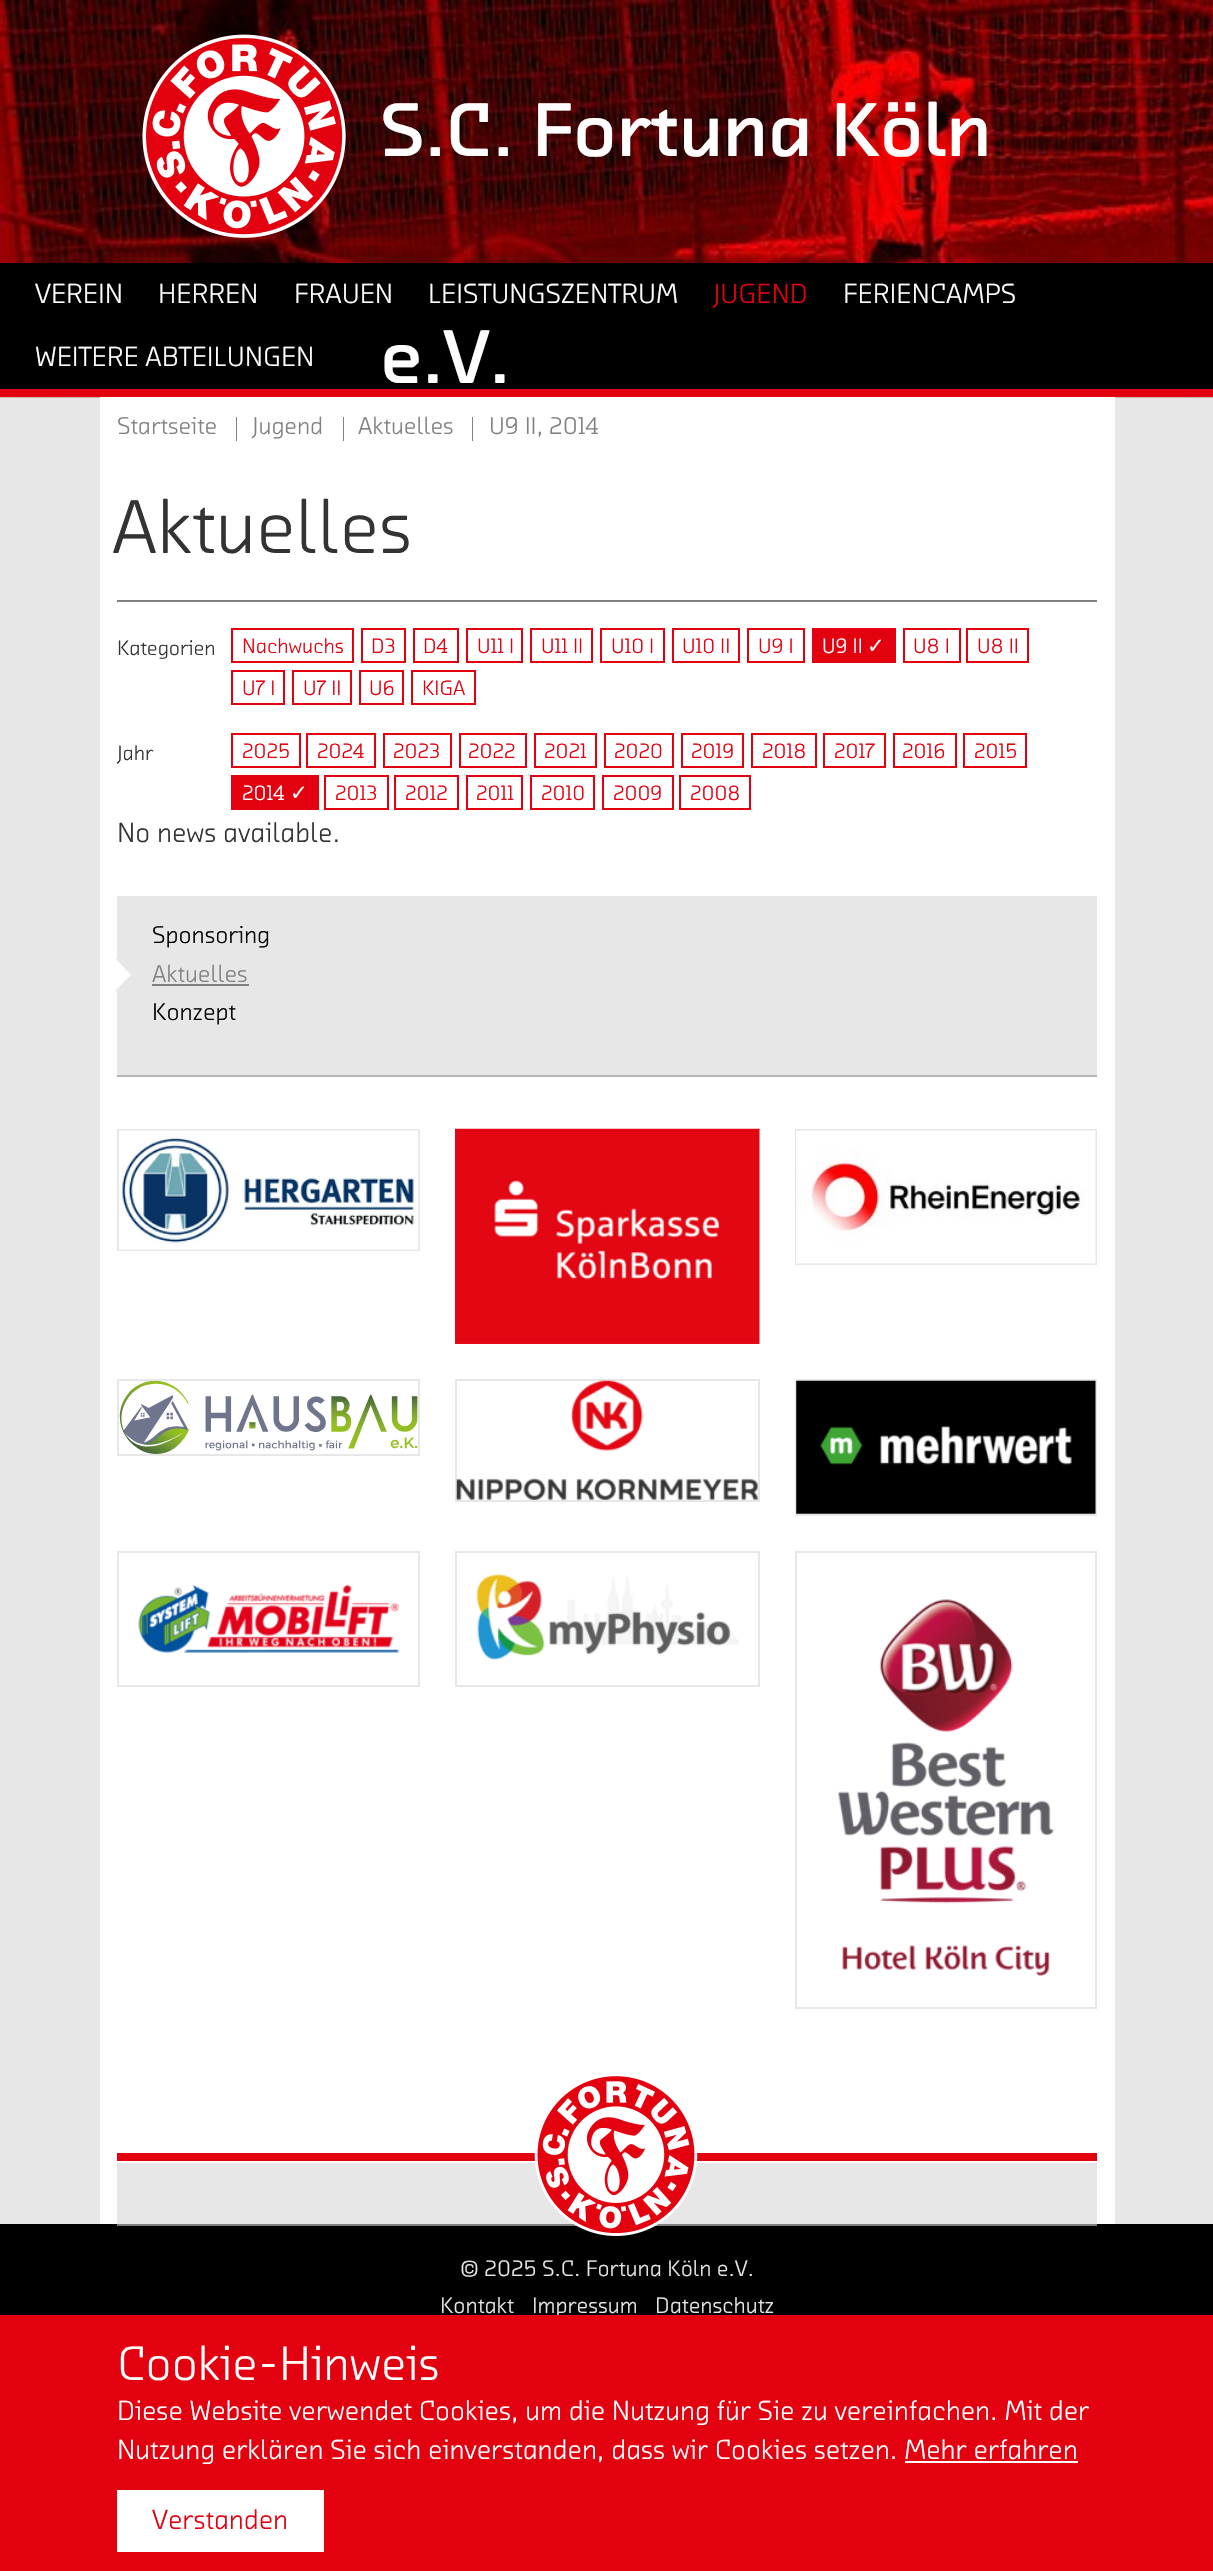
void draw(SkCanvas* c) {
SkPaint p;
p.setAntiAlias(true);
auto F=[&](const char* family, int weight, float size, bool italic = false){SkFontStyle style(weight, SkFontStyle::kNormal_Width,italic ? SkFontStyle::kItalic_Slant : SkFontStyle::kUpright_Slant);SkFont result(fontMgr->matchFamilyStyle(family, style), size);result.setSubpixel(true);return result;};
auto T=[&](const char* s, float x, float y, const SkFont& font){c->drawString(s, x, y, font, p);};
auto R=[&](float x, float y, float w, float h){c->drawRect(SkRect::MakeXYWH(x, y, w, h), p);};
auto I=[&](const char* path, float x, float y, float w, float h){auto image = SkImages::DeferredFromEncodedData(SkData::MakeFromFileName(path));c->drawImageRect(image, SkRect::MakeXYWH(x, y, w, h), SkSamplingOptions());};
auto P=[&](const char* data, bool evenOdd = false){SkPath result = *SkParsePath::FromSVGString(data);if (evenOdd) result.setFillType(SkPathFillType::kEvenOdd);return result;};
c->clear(0xff000000);
p.setColor(0xffe7e7e7);
R(0,397,1213,1827);
I("1.png",0,0,1213,398);
I("2.png",142,34,204,204);
auto f1 = F("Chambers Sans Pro",700,77);
p.setColor(0xffffffff);
T("S.C. Fortuna Köln",380,156,f1);
p.setColor(0xff000000);
R(0,263,1213,126);
p.setColor(0xffffffff);
T("e.V.",380,383,f1);
p.setColor(0xffe3000f);
R(0,389,1213,8);
auto f2 = F("Chambers Sans Pro",400,28);
p.setColor(0xffffffff);
T("VEREIN",35,303,f2);
T("HERREN",158,303,f2);
T("FRAUEN",294,303,f2);
T("LEISTUNGSZENTRUM",428,303,f2);
p.setColor(0xffe3000f);
T("JUGEND",713,303,f2);
p.setColor(0xffffffff);
T("FERIENCAMPS",843,303,f2);
T("WEITERE ABTEILUNGEN",35,366,f2);
R(100,397,1015,1827);
auto f3 = F("Chambers Sans Pro",400,24.5);
p.setColor(0xff818181);
T("Startseite",117,434,f3);
T("Jugend",252,434,f3);
R(236,417,1,24);
T("Aktuelles",358,434,f3);
R(343,417,1,24);
T("U9 II, 2014",489,434,f3);
R(472,417,1,24);
auto f4 = F("Chambers Sans Pro",400,77);
p.setColor(0xff333333);
T("Aktuelles",112,553,f4);
p.setColor(0xff818181);
R(117,600,980,2);
auto f5 = F("Chambers Sans Pro",400,21);
p.setColor(0xff333333);
T("Kategorien",117,655,f5);
p.setStroke(true);
p.setStrokeWidth(2);
p.setColor(0xffe3000f);
c->drawRect(SkRect::MakeXYWH(232,629,121,33),p);
p.setStroke(false);
T("Nachwuchs",242,653,f5);
p.setStroke(true);
c->drawRect(SkRect::MakeXYWH(362,629,43,33),p);
p.setStroke(false);
T("D3",371,653,f5);
p.setStroke(true);
c->drawRect(SkRect::MakeXYWH(414,629,44,33),p);
p.setStroke(false);
T("D4",423,653,f5);
p.setStroke(true);
c->drawRect(SkRect::MakeXYWH(467,629,55,33),p);
p.setStroke(false);
T("U11 I",477,653,f5);
p.setStroke(true);
c->drawRect(SkRect::MakeXYWH(531,629,61,33),p);
p.setStroke(false);
T("U11 II",541,653,f5);
p.setStroke(true);
c->drawRect(SkRect::MakeXYWH(601,629,63,33),p);
p.setStroke(false);
T("U10 I",611,653,f5);
p.setStroke(true);
c->drawRect(SkRect::MakeXYWH(673,629,66,33),p);
p.setStroke(false);
T("U10 II",682,653,f5);
p.setStroke(true);
c->drawRect(SkRect::MakeXYWH(748,629,56,33),p);
p.setStroke(false);
T("U9 I",758,653,f5);
R(812,628,84,35);
p.setColor(0xffffffff);
T("U9 II",822,653,f5);
auto f6 = F("DejaVu Sans",400,21);
T("✓",867,653,f6);
p.setStroke(true);
p.setColor(0xffe3000f);
c->drawRect(SkRect::MakeXYWH(904,629,56,33),p);
p.setStroke(false);
T("U8 I",913,653,f5);
p.setStroke(true);
c->drawRect(SkRect::MakeXYWH(967,629,61,33),p);
p.setStroke(false);
T("U8 II",977,653,f5);
p.setStroke(true);
c->drawRect(SkRect::MakeXYWH(232,671,52,33),p);
p.setStroke(false);
T("U7 I",242,695,f5);
p.setStroke(true);
c->drawRect(SkRect::MakeXYWH(293,671,58,33),p);
p.setStroke(false);
T("U7 II",303,695,f5);
p.setStroke(true);
c->drawRect(SkRect::MakeXYWH(360,671,43,33),p);
p.setStroke(false);
T("U6",369,695,f5);
p.setStroke(true);
c->drawRect(SkRect::MakeXYWH(412,671,63,33),p);
p.setStroke(false);
T("KIGA",422,695,f5);
p.setColor(0xff333333);
T("Jahr",117,760,f5);
p.setStroke(true);
p.setColor(0xffe3000f);
c->drawRect(SkRect::MakeXYWH(232,734,68,33),p);
p.setStroke(false);
T("2025",242,758,f5);
p.setStroke(true);
c->drawRect(SkRect::MakeXYWH(307,734,68,33),p);
p.setStroke(false);
T("2024",317,758,f5);
p.setStroke(true);
c->drawRect(SkRect::MakeXYWH(384,734,67,33),p);
p.setStroke(false);
T("2023",393,758,f5);
p.setStroke(true);
c->drawRect(SkRect::MakeXYWH(460,734,66,33),p);
p.setStroke(false);
T("2022",468,758,f5);
p.setStroke(true);
c->drawRect(SkRect::MakeXYWH(535,734,61,33),p);
p.setStroke(false);
T("2021",544,758,f5);
p.setStroke(true);
c->drawRect(SkRect::MakeXYWH(605,734,68,33),p);
p.setStroke(false);
T("2020",614,758,f5);
p.setStroke(true);
c->drawRect(SkRect::MakeXYWH(682,734,61,33),p);
p.setStroke(false);
T("2019",691,758,f5);
p.setStroke(true);
c->drawRect(SkRect::MakeXYWH(752,734,64,33),p);
p.setStroke(false);
T("2018",762,758,f5);
p.setStroke(true);
c->drawRect(SkRect::MakeXYWH(824,734,61,33),p);
p.setStroke(false);
T("2017",834,758,f5);
p.setStroke(true);
c->drawRect(SkRect::MakeXYWH(894,734,62,33),p);
p.setStroke(false);
T("2016",902,758,f5);
p.setStroke(true);
c->drawRect(SkRect::MakeXYWH(964,734,62,33),p);
p.setStroke(false);
T("2015",974,758,f5);
R(231,775,88,35);
p.setColor(0xffffffff);
T("2014",242,800,f5);
T("✓",290,800,f6);
p.setStroke(true);
p.setColor(0xffe3000f);
c->drawRect(SkRect::MakeXYWH(325,776,63,33),p);
p.setStroke(false);
T("2013",335,800,f5);
p.setStroke(true);
c->drawRect(SkRect::MakeXYWH(395,776,63,33),p);
p.setStroke(false);
T("2012",405,800,f5);
p.setStroke(true);
c->drawRect(SkRect::MakeXYWH(467,776,55,33),p);
p.setStroke(false);
T("2011",476,800,f5);
p.setStroke(true);
c->drawRect(SkRect::MakeXYWH(531,776,63,33),p);
p.setStroke(false);
T("2010",541,800,f5);
p.setStroke(true);
c->drawRect(SkRect::MakeXYWH(603,776,70,33),p);
p.setStroke(false);
T("2009",613,800,f5);
p.setStroke(true);
c->drawRect(SkRect::MakeXYWH(680,776,70,33),p);
p.setStroke(false);
T("2008",690,800,f5);
p.setColor(0xff333333);
T("No news available.",117,842,f2);
p.setColor(0xffb5b5b5);
R(117,1075,980,2);
p.setColor(0xffe7e7e7);
R(117,896,980,179);
p.setColor(0xff000000);
T("Sponsoring",152,943,f3);
p.setColor(0xffe7e7e7);
c->drawPath(P("M115.5 992v-35l17.5 18z"),p);
p.setColor(0xffffffff);
c->drawPath(P("M114 992v-35l17 18z"),p);
p.setColor(0xff818181);
T("Aktuelles",152,982,f3);
R(152,984,97,2);
p.setColor(0xff000000);
T("Konzept",152,1020,f3);
p.setStroke(true);
p.setColor(0xffe7e7e7);
c->drawRect(SkRect::MakeXYWH(118,1130,301,120),p);
I("3.png",119,1130,300,120);
I("4.png",455,1128,305,216);
c->drawRect(SkRect::MakeXYWH(796,1130,300,134),p);
I("5.png",796,1130,300,134);
c->drawRect(SkRect::MakeXYWH(118,1380,301,75),p);
I("6.png",119,1381,299,73);
c->drawRect(SkRect::MakeXYWH(456,1380,303,121),p);
I("7.png",456,1380,302,120);
c->drawRect(SkRect::MakeXYWH(796,1380,300,135),p);
I("8.png",796,1380,300,134);
c->drawRect(SkRect::MakeXYWH(118,1552,301,134),p);
I("9.png",138,1584,261,69);
c->drawRect(SkRect::MakeXYWH(456,1552,303,134),p);
I("10.png",476,1574,263,86);
c->drawRect(SkRect::MakeXYWH(796,1552,300,456),p);
I("11.png",838,1599,216,377);
p.setStroke(false);
R(117,2163,980,61);
p.setColor(0xffe3000f);
R(117,2153,980,8);
p.setColor(0xff818181);
R(117,2224,980,2);
I("12.png",534,2076,164,160);
auto f7 = F("Chambers Sans Pro",400,22.75);
p.setColor(0xffe7e7e7);
T("© 2025 S.C. Fortuna Köln e.V.",460,2276,f7);
T("Kontakt",440,2313,f7);
T("Impressum",532,2313,f7);
T("Datenschutz",655,2313,f7);
p.setColor(0xffe3000f);
R(0,2315,1213,256);
auto f8 = F("Chambers Sans Pro",400,49);
p.setColor(0xffffffff);
T("Cookie-Hinweis",117,2380,f8);
T("Diese Website verwendet Cookies, um die Nutzung für Sie zu vereinfachen. Mit der",117,2420,f2);
T("Nutzung erklären Sie sich einverstanden, dass wir Cookies setzen. Mehr erfahren",117,2459,f2);
R(905,2461,173,2);
R(117,2490,207,62);
p.setColor(0xffe3000f);
T("Verstanden",152,2529,f2);
}
